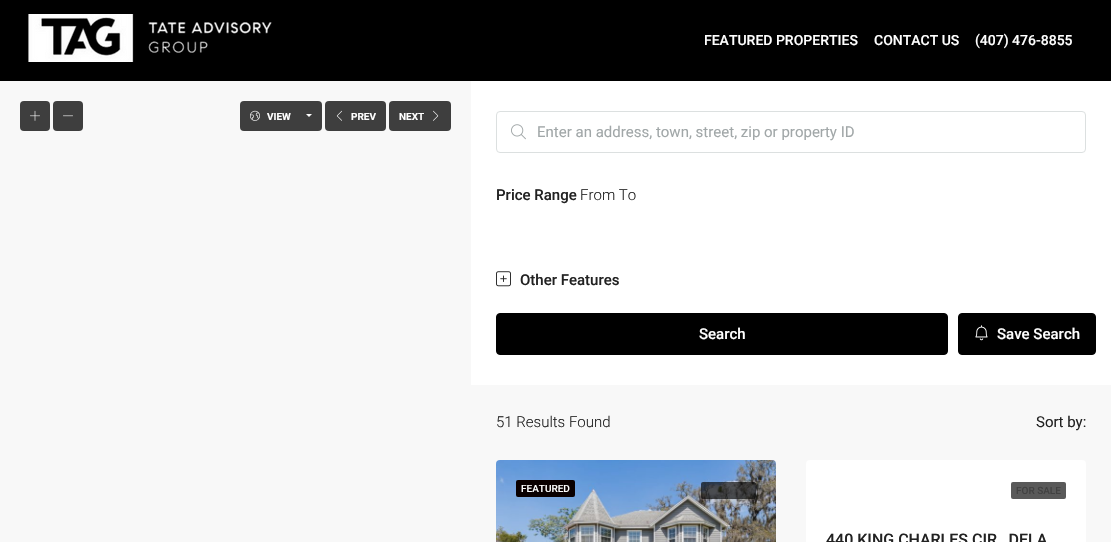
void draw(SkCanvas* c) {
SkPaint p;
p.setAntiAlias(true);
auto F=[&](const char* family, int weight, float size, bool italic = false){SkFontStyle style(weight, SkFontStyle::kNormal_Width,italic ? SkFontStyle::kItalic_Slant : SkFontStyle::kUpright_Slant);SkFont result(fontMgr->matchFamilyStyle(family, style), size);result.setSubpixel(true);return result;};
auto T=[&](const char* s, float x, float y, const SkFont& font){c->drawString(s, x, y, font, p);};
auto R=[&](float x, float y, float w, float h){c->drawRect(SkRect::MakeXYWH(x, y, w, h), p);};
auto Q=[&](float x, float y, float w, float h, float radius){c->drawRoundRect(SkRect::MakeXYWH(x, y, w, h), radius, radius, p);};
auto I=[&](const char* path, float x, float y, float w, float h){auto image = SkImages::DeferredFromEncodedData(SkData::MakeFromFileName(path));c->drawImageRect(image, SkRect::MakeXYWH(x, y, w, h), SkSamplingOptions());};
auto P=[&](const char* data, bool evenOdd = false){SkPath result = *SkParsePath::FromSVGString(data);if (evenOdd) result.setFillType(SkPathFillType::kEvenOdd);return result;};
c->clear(0xfff8f8f8);
p.setColor(0xff000000);
R(0,0,1111,81);
I("1.png",28,14,244,48);
auto f1 = F("Roboto",500,14);
p.setColor(0xffffffff);
T("FEATURED PROPERTIES",704,45,f1);
T("CONTACT US",874,45,f1);
T("(407) 476-8855",975,45,f1);
p.setColor(0xff3e3e3e);
Q(20,101,30,30,4);
I("2.png",30,110,10,11);
Q(53,101,30,30,4);
I("3.png",63,115,10,2);
Q(240,101,82,30,4);
I("4.png",250,110,10,11);
auto f2 = F("Roboto",700,10);
p.setColor(0xffffffff);
T("VIEW",267,120,f2);
c->drawPath(P("M306 114h6l-3 3z"),p);
p.setColor(0xff3e3e3e);
Q(325,101,61,30,4);
I("5.png",336,110,6,11);
p.setColor(0xffffffff);
T("PREV",351,120,f2);
p.setColor(0xff3e3e3e);
Q(389,101,62,30,4);
p.setColor(0xffffffff);
T("NEXT",399,120,f2);
I("6.png",433,110,6,11);
R(471,81,640,304);
p.setStroke(true);
p.setStrokeWidth(1);
p.setColor(0xffdce0e0);
c->drawRoundRect(SkRect::MakeXYWH(496.5,111.5,589,41),3.5,3.5,p);
I("7.png",511,124,15,16);
auto f3 = F("Roboto",400,15);
p.setStroke(false);
p.setColor(0xffa1a7a8);
T("Enter an address, town, street, zip or property ID",537,137,f3);
auto f4 = F("Roboto",500,15);
p.setColor(0xff222222);
T("Price Range",496,200,f4);
auto f5 = F("Roboto",300,15);
T("From To",580,200,f5);
I("8.png",496,271,15,16);
T("Other Features",520,285,f4);
p.setColor(0xff000000);
c->drawRoundRect(SkRect::MakeXYWH(496.5,313.5,451,41),3.5,3.5,p);
p.setStroke(true);
c->drawRoundRect(SkRect::MakeXYWH(496.5,313.5,451,41),3.5,3.5,p);
p.setStroke(false);
p.setColor(0xffffffff);
T("Search",699,339,f4);
p.setColor(0xff000000);
c->drawRoundRect(SkRect::MakeXYWH(958.5,313.5,137,41),3.5,3.5,p);
p.setStroke(true);
c->drawRoundRect(SkRect::MakeXYWH(958.5,313.5,137,41),3.5,3.5,p);
I("9.png",975,325,13,16);
p.setStroke(false);
p.setColor(0xffffffff);
T("Save Search",997,339,f4);
p.setColor(0xff222222);
T("51 Results Found",496,427,f5);
T("Sort by:",1036,427,f3);
I("10.png",496,460,280,82);
p.setColor(0xff0a0000);
Q(516,480,59,17,2);
auto f6 = F("Roboto",500,10);
p.setColor(0xffffffff);
T("FEATURED",521,492,f6);
p.setColor(0xa6000000);
Q(701,482,55,17,2);
p.setColor(0xffffffff);
Q(806,460,280,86,4);
p.setColor(0xff595959);
Q(1011,482,55,17,2);
p.setColor(0xff414141);
T("FOR SALE",1016,494,f6);
auto f7 = F("Roboto",500,16);
p.setColor(0xff222222);
T("440 KING CHARLES CIR , DELA",826,545,f7);
}
